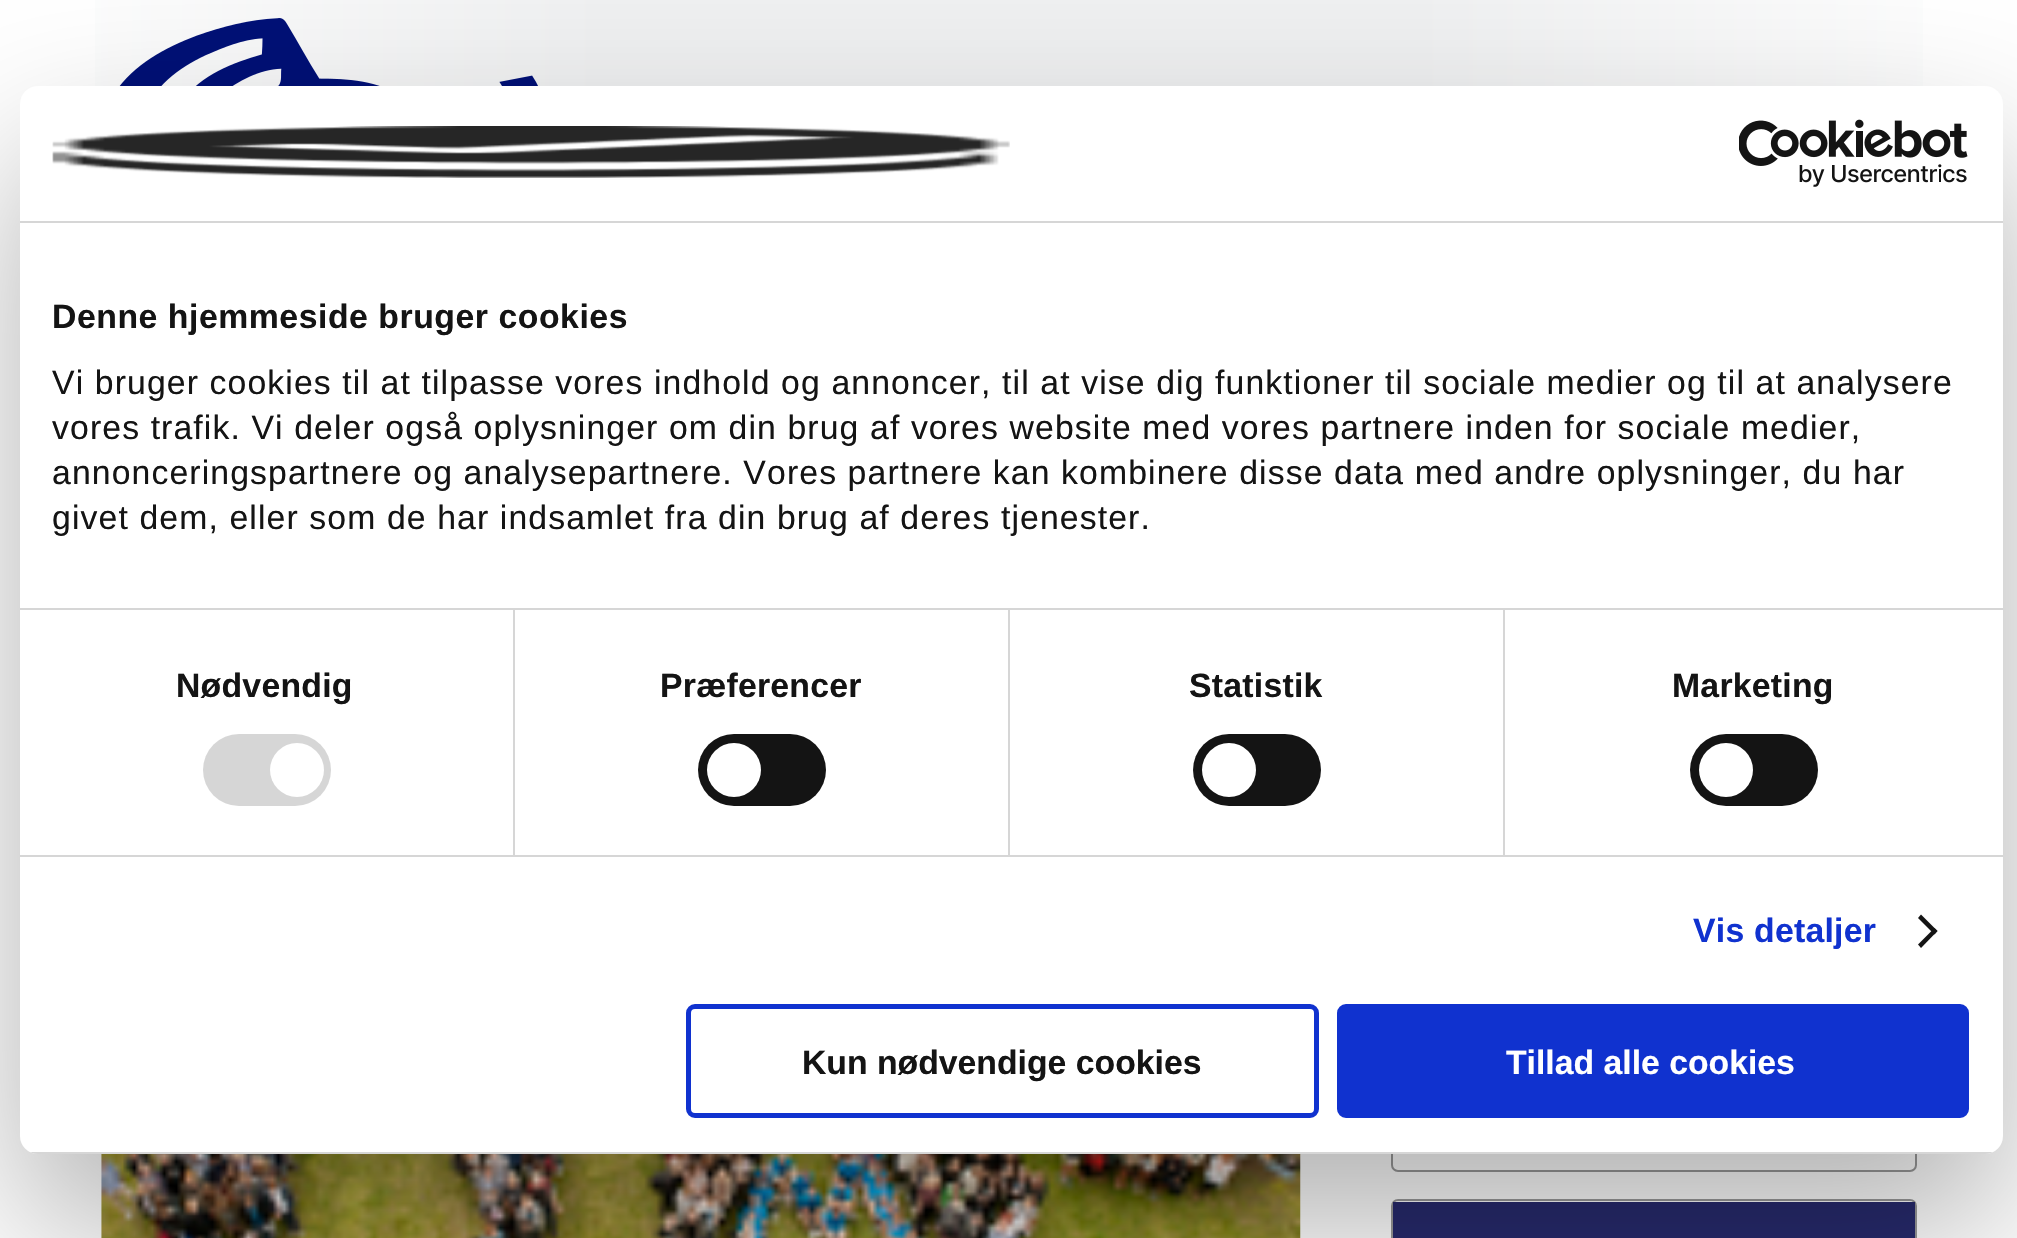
void draw(SkCanvas* c) {
SkPaint p;
p.setAntiAlias(true);
auto F=[&](const char* family, int weight, float size, bool italic = false){SkFontStyle style(weight, SkFontStyle::kNormal_Width,italic ? SkFontStyle::kItalic_Slant : SkFontStyle::kUpright_Slant);SkFont result(fontMgr->matchFamilyStyle(family, style), size);result.setSubpixel(true);return result;};
auto T=[&](const char* s, float x, float y, const SkFont& font){c->drawString(s, x, y, font, p);};
auto L=[&](const char* s, float x, float y, const SkFont& font, const SkPaint& ink, float letter, float word){std::vector<SkGlyphID> glyphs(font.countText(s, strlen(s), SkTextEncoding::kUTF8));std::vector<float> xs(glyphs.size());font.textToGlyphs(s, strlen(s), SkTextEncoding::kUTF8, glyphs);font.getXPos(glyphs, xs, x);float extra = 0;for (size_t i = 0; i < glyphs.size(); i++) {xs[i] += extra;extra += letter + word * (glyphs[i] == font.unicharToGlyph(' '));}c->drawTextBlob(SkTextBlob::MakeFromPosHGlyphs(glyphs, xs, y, font), 0, 0, ink);};
auto R=[&](float x, float y, float w, float h){c->drawRect(SkRect::MakeXYWH(x, y, w, h), p);};
auto Q=[&](float x, float y, float w, float h, float radius){c->drawRoundRect(SkRect::MakeXYWH(x, y, w, h), radius, radius, p);};
auto I=[&](const char* path, float x, float y, float w, float h){auto image = SkImages::DeferredFromEncodedData(SkData::MakeFromFileName(path));c->drawImageRect(image, SkRect::MakeXYWH(x, y, w, h), SkSamplingOptions());};
auto P=[&](const char* data, bool evenOdd = false){SkPath result = *SkParsePath::FromSVGString(data);if (evenOdd) result.setFillType(SkPathFillType::kEvenOdd);return result;};
c->clear(0xffffffff);
{
const SkColor colors[] = {0xffffffff,0xffeff0f1,0xffeff0f1,0xffffffff};
const float stops[] = {0,.3,.7,1};
const SkPoint ends[] = {{0,214}, {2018,214}};
p.setShader(SkGradientShader::MakeLinear(ends, colors, stops, 4, SkTileMode::kClamp));
p.setAlpha(255);
}
R(95,0,1828,428);
I("1.png",119,18,419,68);
I("2.png",101,1154,1200,84);
p.setStroke(true);
p.setStrokeWidth(2);
p.setShader(nullptr);
p.setColor(0xff9a9a9a);
c->drawRoundRect(SkRect::MakeXYWH(1392,489,524,682),6,6,p);
c->drawRoundRect(SkRect::MakeXYWH(1392,1200,524,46),6,6,p);
p.setStroke(false);
p.setColor(0xff272a6d);
R(1393,1202,522,36);
p.setColor(0x4d000000);
p.setMaskFilter(SkMaskFilter::MakeBlur(kNormal_SkBlurStyle, 76.5));
c->drawRoundRect(SkRect::MakeXYWH(20,158,1983,1068),18,18,p);
p.setMaskFilter(nullptr);
p.setColor(0xffffffff);
Q(20,86,1983,1068,18);
p.setColor(0xffd6d6d6);
R(20,221,1983,2);
I("3.png",52,126,958,52);
I("4.png",1739,119,229,68);
R(20,608,1983,2);
auto f1 = F("Liberation Sans",700,33.75);
p.setColor(0xff141414);
L("Denne hjemmeside bruger cookies",52,328,f1,p,.55,0);
auto f2 = F("Liberation Sans",400,33.75);
L("Vi bruger cookies til at tilpasse vores indhold og annoncer, til at vise dig funktioner til sociale medier og til at analysere",52,394,f2,p,1.12,0);
L("vores trafik. Vi deler også oplysninger om din brug af vores website med vores partnere inden for sociale medier,",52,439,f2,p,1.12,0);
L("annonceringspartnere og analysepartnere. Vores partnere kan kombinere disse data med andre oplysninger, du har",52,484,f2,p,1.12,0);
L("givet dem, eller som de har indsamlet fra din brug af deres tjenester.",52,529,f2,p,1.12,0);
p.setColor(0xffd6d6d6);
R(20,855,1983,2);
R(513,610,2,245);
p.setColor(0xff141414);
L("Nødvendig",176,697,f1,p,.25,0);
p.setColor(0xffd6d6d6);
Q(203,734,128,72,36);
p.setColor(0xffffffff);
c->drawCircle(297,770,27,p);
p.setColor(0xffd6d6d6);
R(1008,610,2,245);
p.setColor(0xff141414);
L("Præferencer",660,697,f1,p,.25,0);
Q(698,734,128,72,36);
p.setColor(0xffffffff);
c->drawCircle(734,770,27,p);
p.setColor(0xffd6d6d6);
R(1503,610,2,245);
p.setColor(0xff141414);
L("Statistik",1189,697,f1,p,.25,0);
Q(1193,734,128,72,36);
p.setColor(0xffffffff);
c->drawCircle(1229,770,27,p);
p.setColor(0xff141414);
L("Marketing",1672,697,f1,p,.25,0);
Q(1690,734,128,72,36);
p.setColor(0xffffffff);
c->drawCircle(1726,770,27,p);
p.setColor(0xff1032cf);
L("Vis detaljer",1693,942,f1,p,.25,0);
p.setColor(0xff141414);
c->drawPath(P("M1921 914.5l16.5 16.5l-3 3.5l-16.5-16.5z"),p);
c->drawPath(P("M1934.5 928l3 3l-16.5 17l-3-3.5z"),p);
c->save();
c->clipPath(P("M38 86h1947c10 0 18 8 18 18v1032c0 10-8 18-18 18h-1947c-10 0-18-8-18-18v-1032c0-10 8-18 18-18z"),true);
p.setColor(0xffd6d6d6);
R(30,1152,1963,2);
c->restore();
p.setStroke(true);
p.setStrokeWidth(5);
p.setColor(0xff1032cf);
c->drawRoundRect(SkRect::MakeXYWH(688.5,1006.5,628,109),6.5,6.5,p);
p.setStroke(false);
p.setColor(0xff141414);
T("Kun nødvendige cookies",802,1074,f1);
p.setColor(0xff1032cf);
c->drawRoundRect(SkRect::MakeXYWH(1339.5,1006.5,627,109),6.5,6.5,p);
p.setStroke(true);
c->drawRoundRect(SkRect::MakeXYWH(1339.5,1006.5,627,109),6.5,6.5,p);
p.setStroke(false);
p.setColor(0xffffffff);
T("Tillad alle cookies",1506,1074,f1);
}
